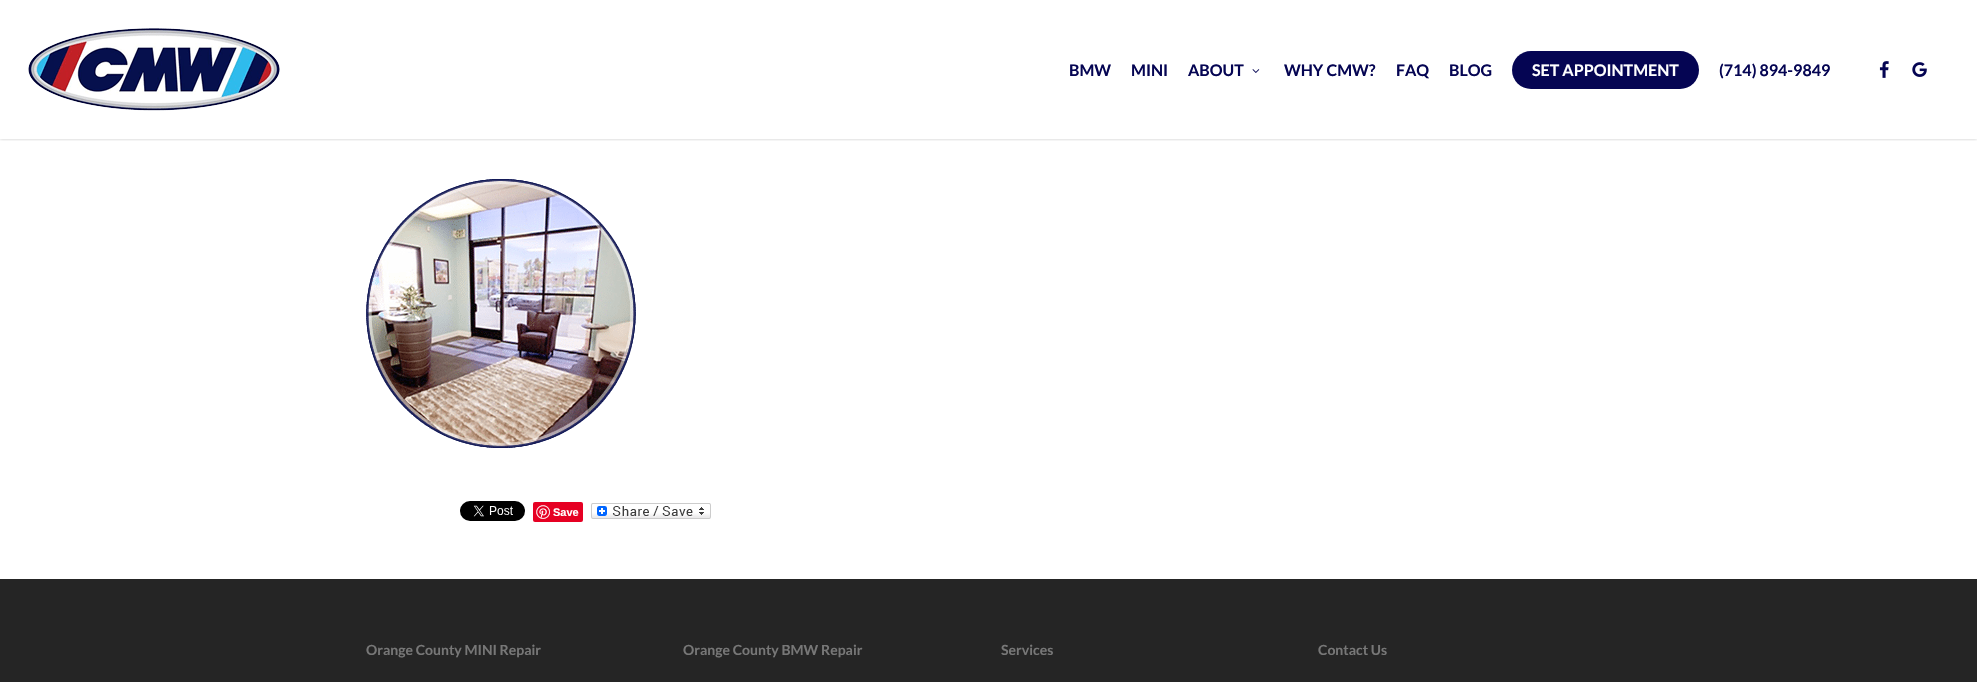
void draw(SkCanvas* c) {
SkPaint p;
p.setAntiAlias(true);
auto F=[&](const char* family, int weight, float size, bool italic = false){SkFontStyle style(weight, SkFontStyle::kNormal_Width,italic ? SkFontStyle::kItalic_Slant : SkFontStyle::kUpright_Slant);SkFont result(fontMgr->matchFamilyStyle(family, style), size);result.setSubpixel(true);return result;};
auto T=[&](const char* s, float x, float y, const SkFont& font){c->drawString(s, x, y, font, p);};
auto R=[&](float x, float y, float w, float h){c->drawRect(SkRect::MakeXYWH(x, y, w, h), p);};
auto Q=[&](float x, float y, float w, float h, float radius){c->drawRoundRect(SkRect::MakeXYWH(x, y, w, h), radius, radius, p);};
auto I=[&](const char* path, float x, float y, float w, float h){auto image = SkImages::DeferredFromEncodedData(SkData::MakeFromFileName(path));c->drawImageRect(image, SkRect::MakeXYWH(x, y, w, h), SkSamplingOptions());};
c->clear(0xffffffff);
c->save();
c->clipRect(SkRect::MakeXYWH(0,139,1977,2));
p.setColor(0x38000000);
p.setMaskFilter(SkMaskFilter::MakeBlur(kNormal_SkBlurStyle, 1.5));
c->drawRect(SkRect::MakeXYWH(0,0,1977,139),p);
p.setMaskFilter(nullptr);
c->restore();
I("1.png",28,28,252,83);
auto f1 = F("Lato",700,16);
p.setColor(0xff050553);
T("BMW",1069,76,f1);
T("MINI",1131,76,f1);
T("ABOUT",1188,76,f1);
I("2.png",1252,69,8,4);
T("WHY CMW?",1284,76,f1);
T("FAQ",1396,76,f1);
T("BLOG",1449,76,f1);
Q(1512,51,187,38,19);
p.setColor(0xffffffff);
T("SET APPOINTMENT",1532,76,f1);
p.setColor(0xff050553);
T("(714) 894-9849",1719,76,f1);
I("3.png",1879,61,10,17);
I("4.png",1912,62,15,15);
I("5.png",366,179,270,269);
I("6.png",460,501,65,20);
p.setColor(0xffe60023);
Q(533,502,50,20,2);
I("7.png",536,505,14,14);
auto f2 = F("Liberation Sans",700,11);
p.setColor(0xffffffff);
T("Save",553,516,f2);
I("8.png",591,503,120,16);
p.setColor(0xff252525);
R(0,579,1977,103);
auto f3 = F("Lato",700,14);
p.setColor(0xff777777);
T("Orange County MINI Repair",366,655,f3);
T("Orange County BMW Repair",683,655,f3);
T("Services",1001,655,f3);
T("Contact Us",1318,655,f3);
}
